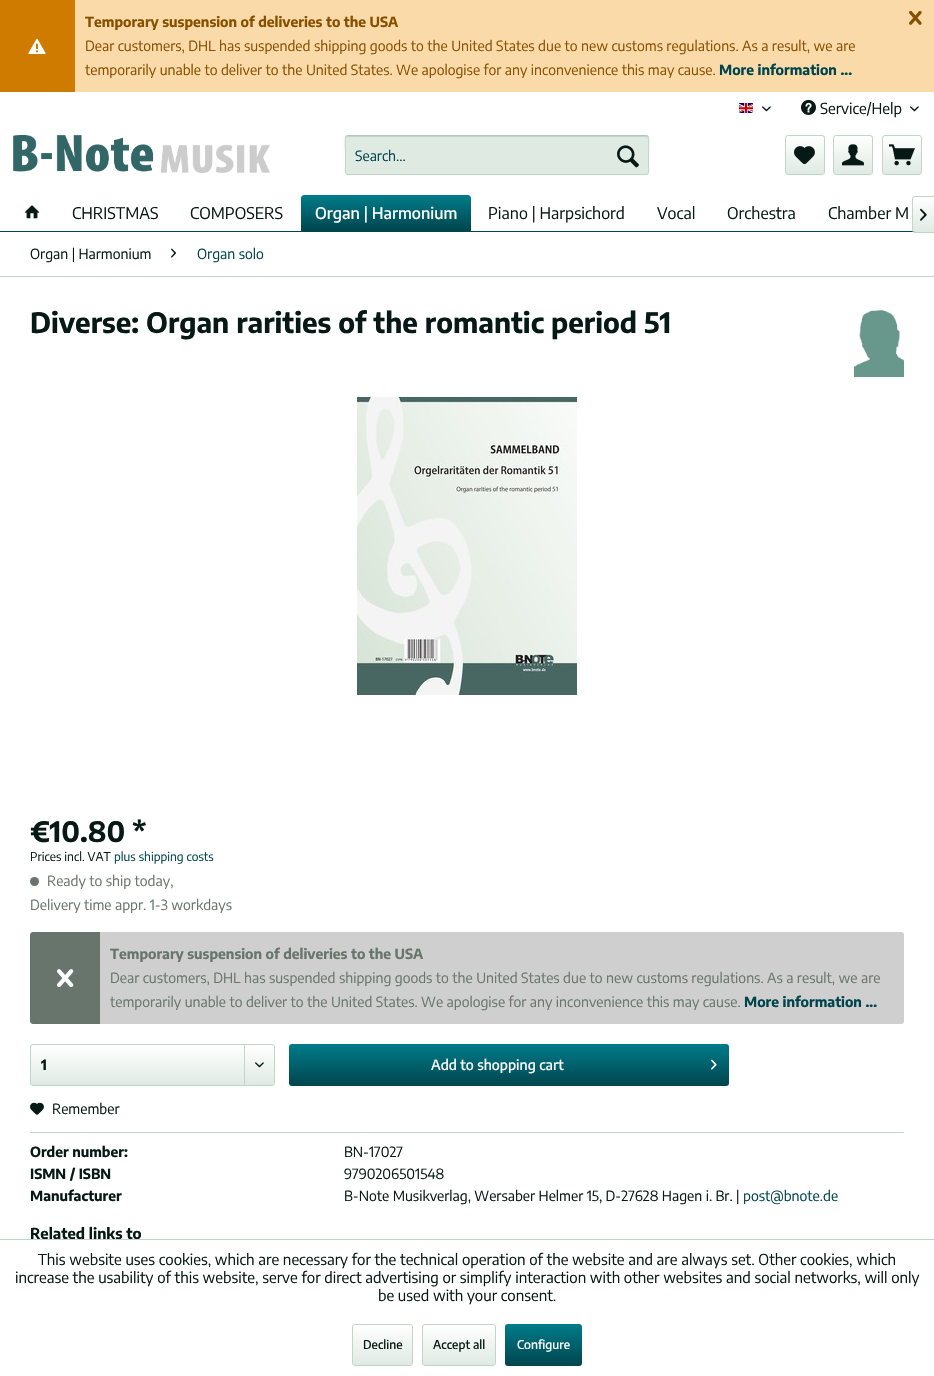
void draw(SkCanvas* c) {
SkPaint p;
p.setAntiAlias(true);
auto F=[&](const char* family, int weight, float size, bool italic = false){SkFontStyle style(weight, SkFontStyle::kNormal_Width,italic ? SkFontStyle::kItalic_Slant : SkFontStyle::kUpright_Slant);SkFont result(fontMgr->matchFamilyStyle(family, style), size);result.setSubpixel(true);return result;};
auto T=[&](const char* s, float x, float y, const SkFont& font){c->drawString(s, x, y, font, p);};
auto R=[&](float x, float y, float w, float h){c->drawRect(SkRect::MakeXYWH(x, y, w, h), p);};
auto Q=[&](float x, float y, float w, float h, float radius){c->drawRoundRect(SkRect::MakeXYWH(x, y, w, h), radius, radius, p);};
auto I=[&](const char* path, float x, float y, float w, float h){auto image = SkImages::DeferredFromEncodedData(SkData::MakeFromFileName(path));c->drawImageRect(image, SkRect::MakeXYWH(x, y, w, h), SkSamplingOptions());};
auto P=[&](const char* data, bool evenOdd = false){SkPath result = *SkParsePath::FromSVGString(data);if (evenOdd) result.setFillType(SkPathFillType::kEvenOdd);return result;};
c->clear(0xffffffff);
p.setColor(0xfffbdaaa);
R(75,0,859,92);
p.setColor(0xffce7b00);
R(0,0,75,92);
I("1.png",28,38,18,16);
auto f1 = F("Encode Sans",700,14);
p.setColor(0xff875000);
T("Temporary suspension of deliveries to the USA",85,27,f1);
I("2.png",909,10,13,15);
auto f2 = F("Encode Sans",400,14);
T("Dear customers, DHL has suspended shipping goods to the United States due to new customs regulations. As a result, we are",85,51,f2);
T("temporarily unable to deliver to the United States. We apologise for any inconvenience this may cause.",85,75,f2);
p.setColor(0xff00454d);
T("More information ...",719,75,f1);
I("3.png",739,103,14,10);
I("4.png",762,106,9,6);
I("5.png",801,99,15,16);
auto f3 = F("Encode Sans",400,15);
p.setColor(0xff071914);
T("Service/Help",820,114,f3);
I("4.png",910,106,9,6);
I("6.png",13,135,257,38);
p.setColor(0xffdfeae3);
Q(345,135,304,40,3);
p.setColor(0xffc0d6c7);
c->drawPath(P("M348 137h298c1 0 2 1 2 2c0-1 0-3-2-3h-299l-1 3c0-1 1-2 2-2z"),p);
p.setStroke(true);
p.setStrokeWidth(1);
p.setColor(0xffb1ccba);
c->drawPath(P("M346 136l2-.5h298l2 .5"),p);
p.setColor(0xffc0d6c7);
c->drawPath(P("M648 136c1.5 2 .5 16 .5 19v11.5c0 1.5 1.5 8-2.5 8h-298c-4 0-2.5-6.5-2.5-8v-11.5c0-3-1-17 .5-19"),p);
p.setStroke(false);
p.setColor(0xff00454d);
T("Search...",355,161,f2);
I("7.png",617,145,22,23);
{
const SkColor colors[] = {0xffffffff,0xffdfeae3};
const float stops[] = {0,1};
const SkPoint ends[] = {{805,136}, {805,174}};
p.setShader(SkGradientShader::MakeLinear(ends, colors, stops, 2, SkTileMode::kClamp));
p.setAlpha(255);
}
Q(786,136,38,38,2);
p.setStroke(true);
p.setShader(nullptr);
p.setColor(0xffc0d6c7);
c->drawRoundRect(SkRect::MakeXYWH(785.5,135.5,39,39),2.5,2.5,p);
I("8.png",794,146,21,19);
p.setStroke(false);
{
const SkColor colors[] = {0xffffffff,0xffdfeae3};
const float stops[] = {0,1};
const SkPoint ends[] = {{853,136}, {853,174}};
p.setShader(SkGradientShader::MakeLinear(ends, colors, stops, 2, SkTileMode::kClamp));
p.setAlpha(255);
}
Q(834,136,38,38,2);
p.setStroke(true);
p.setShader(nullptr);
p.setColor(0xffc0d6c7);
c->drawRoundRect(SkRect::MakeXYWH(833.5,135.5,39,39),2.5,2.5,p);
I("9.png",842,144,22,22);
p.setStroke(false);
{
const SkColor colors[] = {0xffffffff,0xffdfeae3};
const float stops[] = {0,1};
const SkPoint ends[] = {{902,136}, {902,174}};
p.setShader(SkGradientShader::MakeLinear(ends, colors, stops, 2, SkTileMode::kClamp));
p.setAlpha(255);
}
Q(883,136,38,38,2);
p.setStroke(true);
p.setShader(nullptr);
p.setColor(0xffc0d6c7);
c->drawRoundRect(SkRect::MakeXYWH(882.5,135.5,39,39),2.5,2.5,p);
I("10.png",889,144,26,22);
p.setStroke(false);
p.setColor(0xff00454d);
R(0,231,915,1);
I("11.png",24,205,16,14);
auto f4 = F("Encode Sans",400,16);
p.setColor(0xff071914);
T("CHRISTMAS",72,219,f4);
T("COMPOSERS",190,219,f4);
{
const SkColor colors[] = {0xff007c8a,0xff00454d};
const float stops[] = {0,1};
const SkPoint ends[] = {{386,195}, {386,231}};
p.setShader(SkGradientShader::MakeLinear(ends, colors, stops, 2, SkTileMode::kClamp));
p.setAlpha(255);
}
c->drawPath(P("M304 195h164c1.5 0 3 1.5 3 3v33h-170v-33c0-1.5 1.5-3 3-3z"),p);
auto f5 = F("Encode Sans",500,16);
p.setShader(nullptr);
p.setColor(0xffffffff);
T("Organ | Harmonium",315,219,f5);
p.setColor(0xff071914);
T("Piano | Harpsichord",488,219,f4);
T("Vocal",657,219,f4);
T("Orchestra",727,219,f4);
T("Chamber M",828,219,f4);
{
const SkColor colors[] = {0xffffffff,0xffdfeae3};
const float stops[] = {0,1};
const SkPoint ends[] = {{924,197}, {924,232}};
p.setShader(SkGradientShader::MakeLinear(ends, colors, stops, 2, SkTileMode::kClamp));
p.setAlpha(255);
}
c->drawPath(P("M915 197h19v35h-19c-1 0-2-1-2-2v-31c0-1 1-2 2-2z"),p);
p.setShader(nullptr);
p.setColor(0xffc0d6c7);
c->drawPath(P("M915 196h19v37h-19c-1.5 0-3-1.5-3-3v-31c0-1.5 1.5-3 3-3zm0 1h19v35h-19c-1 0-2-1-2-2v-31c0-1 1-2 2-2z",true),p);
I("12.png",920,208,7,13);
R(0,276,934,1);
p.setColor(0xff071914);
T("Organ | Harmonium",30,259,f2);
I("13.png",171,248,5,10);
p.setColor(0xff00454d);
T("Organ solo",197,259,f2);
auto f6 = F("Encode Sans",700,28);
p.setColor(0xff071914);
T("Diverse: Organ rarities of the romantic period 51",30,333,f6);
I("14.png",854,310,50,67);
I("15.png",357,397,220,298);
T("€10.80 *",30,842,f6);
auto f7 = F("Encode Sans",400,12);
T("Prices incl. VAT",30,861,f7);
p.setColor(0xff00454d);
T("plus shipping costs",114,861,f7);
p.setColor(0xff67756c);
c->drawCircle(34.5,881.5,4.5,p);
T("Ready to ship today,",47,886,f2);
T("Delivery time appr. 1-3 workdays",30,910,f2);
p.setColor(0xffcfcfcf);
Q(30,932,874,92,3);
p.setColor(0xff67756c);
c->drawPath(P("M33 932h67v92h-67c-1.5 0-3-1.5-3-3v-86c0-1.5 1.5-3 3-3z"),p);
I("16.png",57,969,17,19);
T("Temporary suspension of deliveries to the USA",110,959,f1);
T("Dear customers, DHL has suspended shipping goods to the United States due to new customs regulations. As a result, we are",110,983,f2);
T("temporarily unable to deliver to the United States. We apologise for any inconvenience this may cause.",110,1007,f2);
p.setColor(0xff00454d);
T("More information ...",744,1007,f1);
{
const SkColor colors[] = {0xffffffff,0xffdfeae3};
const float stops[] = {0,1};
const SkPoint ends[] = {{153,1045}, {153,1085}};
p.setShader(SkGradientShader::MakeLinear(ends, colors, stops, 2, SkTileMode::kClamp));
p.setAlpha(255);
}
Q(31,1045,243,40,2);
p.setStroke(true);
p.setShader(nullptr);
p.setColor(0xffc0d6c7);
c->drawRoundRect(SkRect::MakeXYWH(30.5,1044.5,244,41),2.5,2.5,p);
p.setStroke(false);
p.setColor(0xff071914);
T("1",41,1070,f1);
p.setColor(0xffc0d6c7);
R(244,1045,1,40);
I("17.png",255,1062,9,6);
{
const SkColor colors[] = {0xff007c8a,0xff00454d};
const float stops[] = {0,1};
const SkPoint ends[] = {{509,1044}, {509,1086}};
p.setShader(SkGradientShader::MakeLinear(ends, colors, stops, 2, SkTileMode::kClamp));
p.setAlpha(255);
}
Q(289,1044,440,42,3);
auto f8 = F("Encode Sans",500,14);
p.setShader(nullptr);
p.setColor(0xffffffff);
T("Add to shopping cart",431,1070,f8);
I("18.png",711,1059,6,11);
p.setColor(0xffc0d6c7);
R(30,1132,874,1);
I("19.png",30,1102,14,13);
p.setColor(0xff071914);
T("Remember",52,1114,f2);
T("Order number:",30,1157,f1);
T("BN-17027",344,1157,f2);
T("ISMN / ISBN",30,1179,f1);
T("9790206501548",344,1179,f2);
T("Manufacturer",30,1201,f1);
T("B-Note Musikverlag, Wersaber Helmer 15, D-27628 Hagen i. Br. |",344,1201,f2);
p.setColor(0xff00454d);
T("post@bnote.de",743,1201,f2);
auto f9 = F("Encode Sans",700,15);
p.setColor(0xff071914);
T("Related links to",30,1239,f9);
p.setColor(0xffc0d6c7);
R(0,1239,934,1);
p.setColor(0xff071914);
T("This website uses cookies, which are necessary for the technical operation of the website and are always set. Other cookies, which",38,1265,f3);
T("increase the usability of this website, serve for direct advertising or simplify interaction with other websites and social networks, will only",15,1283,f3);
T("be used with your consent.",378,1301,f3);
{
const SkColor colors[] = {0xffffffff,0xffdfeae3};
const float stops[] = {0,1};
const SkPoint ends[] = {{383,1325}, {383,1365}};
p.setShader(SkGradientShader::MakeLinear(ends, colors, stops, 2, SkTileMode::kClamp));
p.setAlpha(255);
}
Q(353,1325,59,40,2);
p.setStroke(true);
p.setShader(nullptr);
p.setColor(0xffc0d6c7);
c->drawRoundRect(SkRect::MakeXYWH(352.5,1324.5,60,41),2.5,2.5,p);
auto f10 = F("Encode Sans",500,12);
p.setStroke(false);
p.setColor(0xff071914);
T("Decline",363,1349,f10);
{
const SkColor colors[] = {0xffffffff,0xffdfeae3};
const float stops[] = {0,1};
const SkPoint ends[] = {{459,1325}, {459,1365}};
p.setShader(SkGradientShader::MakeLinear(ends, colors, stops, 2, SkTileMode::kClamp));
p.setAlpha(255);
}
Q(423,1325,72,40,2);
p.setStroke(true);
p.setShader(nullptr);
p.setColor(0xffc0d6c7);
c->drawRoundRect(SkRect::MakeXYWH(422.5,1324.5,73,41),2.5,2.5,p);
p.setStroke(false);
p.setColor(0xff071914);
T("Accept all",433,1349,f10);
{
const SkColor colors[] = {0xff007c8a,0xff00454d};
const float stops[] = {0,1};
const SkPoint ends[] = {{544,1324}, {544,1366}};
p.setShader(SkGradientShader::MakeLinear(ends, colors, stops, 2, SkTileMode::kClamp));
p.setAlpha(255);
}
Q(505,1324,77,42,3);
p.setShader(nullptr);
p.setColor(0xffffffff);
T("Configure",517,1349,f10);
}
